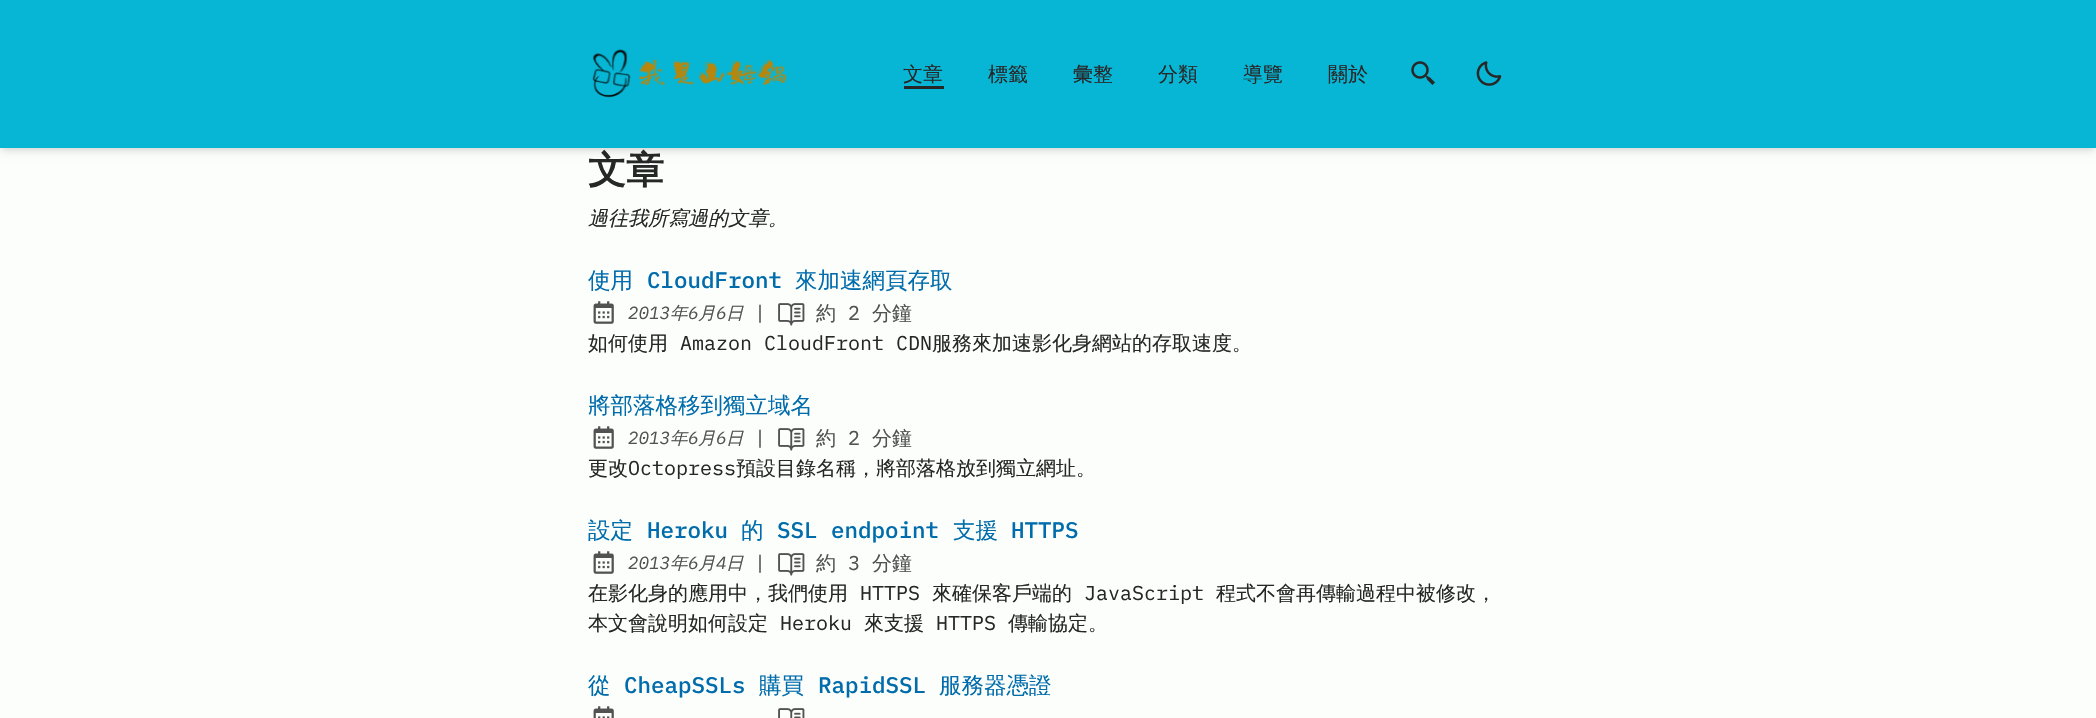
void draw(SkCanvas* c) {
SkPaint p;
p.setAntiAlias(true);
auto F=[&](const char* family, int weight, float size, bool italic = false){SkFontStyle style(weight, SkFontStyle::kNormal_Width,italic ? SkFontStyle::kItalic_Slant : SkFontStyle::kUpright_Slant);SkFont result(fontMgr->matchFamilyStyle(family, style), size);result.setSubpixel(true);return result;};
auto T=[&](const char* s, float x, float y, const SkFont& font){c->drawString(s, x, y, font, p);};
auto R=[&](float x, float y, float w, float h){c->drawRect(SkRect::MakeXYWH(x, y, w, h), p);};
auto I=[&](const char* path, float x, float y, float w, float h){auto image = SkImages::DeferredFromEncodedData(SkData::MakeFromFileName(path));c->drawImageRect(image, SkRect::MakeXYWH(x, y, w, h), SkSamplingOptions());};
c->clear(0xfffbfefb);
p.setColor(0x1a000000);
p.setMaskFilter(SkMaskFilter::MakeBlur(kNormal_SkBlurStyle, 2.5));
c->drawRect(SkRect::MakeXYWH(3,5,2091,143),p);
p.setMaskFilter(nullptr);
p.setMaskFilter(SkMaskFilter::MakeBlur(kNormal_SkBlurStyle, 4));
c->drawRect(SkRect::MakeXYWH(1,6,2094,145),p);
p.setMaskFilter(nullptr);
p.setColor(0xff06b6d4);
R(0,0,2096,148);
I("1.png",592,49,195,49);
auto f1 = F("WenQuanYi Zen Hei",500,20);
p.setColor(0xff282728);
T("文章",903,81,f1);
R(904,86,40,3);
T("標籤",988,81,f1);
T("彙整",1073,81,f1);
T("分類",1158,81,f1);
T("導覽",1243,81,f1);
T("關於",1328,81,f1);
I("2.png",1411,61,24,24);
I("3.png",1476,61,26,25);
auto f2 = F("WenQuanYi Zen Hei",700,38);
T("文章",588,183,f2);
auto f3 = F("WenQuanYi Zen Hei",500,20,true);
T("過往我所寫過的文章。",588,225,f3);
auto f4 = F("WenQuanYi Zen Hei",500,22.5);
p.setColor(0xff006cac);
T("使用",588,288,f4);
auto f5 = F("IBM Plex Mono",500,22.5);
T("CloudFront",647,288,f5);
T("來加速網頁存取",795,288,f4);
I("4.png",593,301,21,23);
auto f6 = F("IBM Plex Mono",400,17.5,true);
p.setColor(0xff525252);
T("2013",628,319,f6);
auto f7 = F("WenQuanYi Zen Hei",500,17.5,true);
T("年",670,319,f7);
T("6",688,319,f6);
T("月",698,319,f7);
T("6",716,319,f6);
T("日",726,319,f7);
auto f8 = F("IBM Plex Mono",400,20);
T("|",754,320,f8);
I("5.png",778,303,27,23);
T("約",816,320,f1);
T("2",848,320,f8);
T("分鐘",872,320,f1);
p.setColor(0xff282728);
T("如何使用",588,350,f1);
T("Amazon CloudFront CDN",680,350,f8);
T("服務來加速影化身網站的存取速度。",932,350,f1);
p.setColor(0xff006cac);
T("將部落格移到獨立域名",588,413,f4);
I("4.png",593,426,21,23);
p.setColor(0xff525252);
T("2013",628,444,f6);
T("年",670,444,f7);
T("6",688,444,f6);
T("月",698,444,f7);
T("6",716,444,f6);
T("日",726,444,f7);
T("|",754,445,f8);
I("5.png",778,428,27,23);
T("約",816,445,f1);
T("2",848,445,f8);
T("分鐘",872,445,f1);
p.setColor(0xff282728);
T("更改",588,475,f1);
T("Octopress",628,475,f8);
T("預設目錄名稱，將部落格放到獨立網址。",736,475,f1);
p.setColor(0xff006cac);
T("設定",588,538,f4);
T("Heroku",647,538,f5);
T("的",741,538,f4);
T("SSL endpoint",777,538,f5);
T("支援",953,538,f4);
T("HTTPS",1011,538,f5);
I("4.png",593,551,21,23);
p.setColor(0xff525252);
T("2013",628,569,f6);
T("年",670,569,f7);
T("6",688,569,f6);
T("月",698,569,f7);
T("4",716,569,f6);
T("日",726,569,f7);
T("|",754,570,f8);
I("5.png",778,553,27,23);
T("約",816,570,f1);
T("3",848,570,f8);
T("分鐘",872,570,f1);
p.setColor(0xff282728);
T("在影化身的應用中，我們使用",588,600,f1);
T("HTTPS",860,600,f8);
T("來確保客戶端的",932,600,f1);
T("JavaScript",1084,600,f8);
T("程式不會再傳輸過程中被修改，",1216,600,f1);
T("本文會說明如何設定",588,630,f1);
T("Heroku",780,630,f8);
T("來支援",864,630,f1);
T("HTTPS",936,630,f8);
T("傳輸協定。",1008,630,f1);
p.setColor(0xff006cac);
T("從",588,693,f4);
T("CheapSSLs",624,693,f5);
T("購買",759,693,f4);
T("RapidSSL",818,693,f5);
T("服務器憑證",939,693,f4);
I("6.png",593,706,21,12);
I("7.png",778,708,27,10);
}
